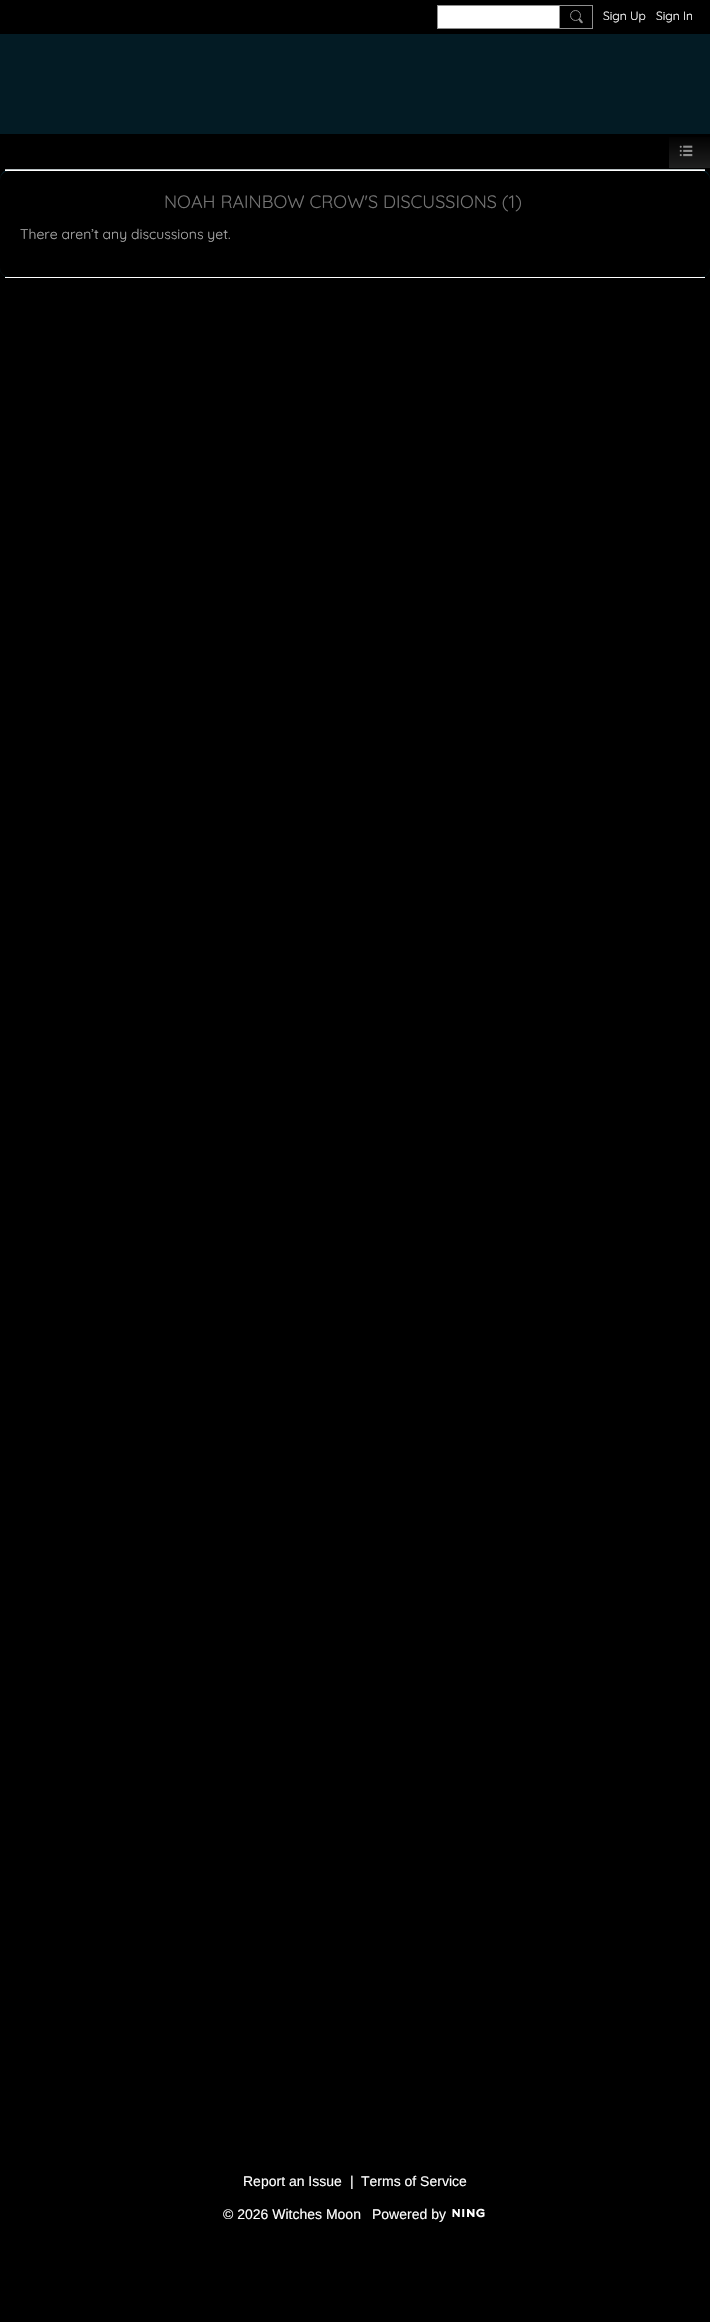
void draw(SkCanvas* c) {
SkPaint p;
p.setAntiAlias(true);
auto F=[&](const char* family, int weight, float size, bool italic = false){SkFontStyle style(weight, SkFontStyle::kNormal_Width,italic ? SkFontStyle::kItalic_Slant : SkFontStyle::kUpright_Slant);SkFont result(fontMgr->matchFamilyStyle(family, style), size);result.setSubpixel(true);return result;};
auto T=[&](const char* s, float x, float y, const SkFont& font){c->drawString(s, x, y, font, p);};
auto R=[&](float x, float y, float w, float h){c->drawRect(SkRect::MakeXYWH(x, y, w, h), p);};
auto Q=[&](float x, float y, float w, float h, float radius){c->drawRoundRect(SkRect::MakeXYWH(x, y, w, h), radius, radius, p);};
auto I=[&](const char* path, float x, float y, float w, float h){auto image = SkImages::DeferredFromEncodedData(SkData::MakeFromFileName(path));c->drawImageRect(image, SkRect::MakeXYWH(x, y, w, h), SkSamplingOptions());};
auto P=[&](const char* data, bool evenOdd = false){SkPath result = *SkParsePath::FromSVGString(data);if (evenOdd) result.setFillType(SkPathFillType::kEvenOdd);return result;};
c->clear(0xff000000);
p.setColor(0xffffffff);
c->drawRect(SkRect::MakeXYWH(437.5,5.5,122,23),p);
p.setStroke(true);
p.setStrokeWidth(1);
p.setColor(0xff8f8f8f);
c->drawRect(SkRect::MakeXYWH(437.5,5.5,122,23),p);
c->drawRect(SkRect::MakeXYWH(559.5,5.5,33,23),p);
c->drawCircle(575.5,15.5,5,p);
p.setStroke(false);
c->drawPath(P("M580.5 19l2 2.5c.5 .5 .5 1 0 1.5c-1 1-3-1.5-3.5-2.5c-1-1 .5-2 1.5-1.5z"),p);
auto f1 = F("Quicksand",300,12);
p.setColor(0xffffffff);
T("Sign Up",603,20,f1);
T("Sign In",656,20,f1);
p.setColor(0xff031b24);
R(0,34,710,100);
{
const SkColor colors[] = {0xff000000,0xff1f1f1f};
const float stops[] = {0,1};
const SkPoint ends[] = {{690,134}, {690,168}};
p.setShader(SkGradientShader::MakeLinear(ends, colors, stops, 2, SkTileMode::kClamp));
p.setAlpha(255);
}
R(669,137,41,31);
I("1.png",679,145,14,12);
p.setShader(nullptr);
p.setColor(0xff031b24);
Q(0,169,710,109,10);
p.setColor(0xb3ffffff);
R(5,169,700,1);
p.setColor(0xff000000);
c->drawPath(P("M10 171h690c6 0 10 4 10 9v88c0 5-4 9-10 9h-690c-6 0-10-4-10-9v-88c0-5 4-9 10-9z"),p);
p.setColor(0xffffffff);
R(5,170,700,1);
R(5,277,700,1);
auto f2 = F("Quicksand",300,18);
p.setColor(0xff737373);
T("NOAH RAINBOW CROW'S DISCUSSIONS (1)",164,208,f2);
auto f3 = F("Quicksand",300,14);
p.setColor(0xffababab);
T("There aren’t any discussions yet.",20,239,f3);
auto f4 = F("Liberation Sans",400,14);
p.setColor(0xffffffff);
T("Report an Issue",243,2186,f4);
T("|",350,2186,f4);
T("Terms of Service",361,2186,f4);
T("© 2026 Witches Moon",223,2219,f4);
T("Powered by",372,2219,f4);
I("2.png",452,2208,33,10);
}
